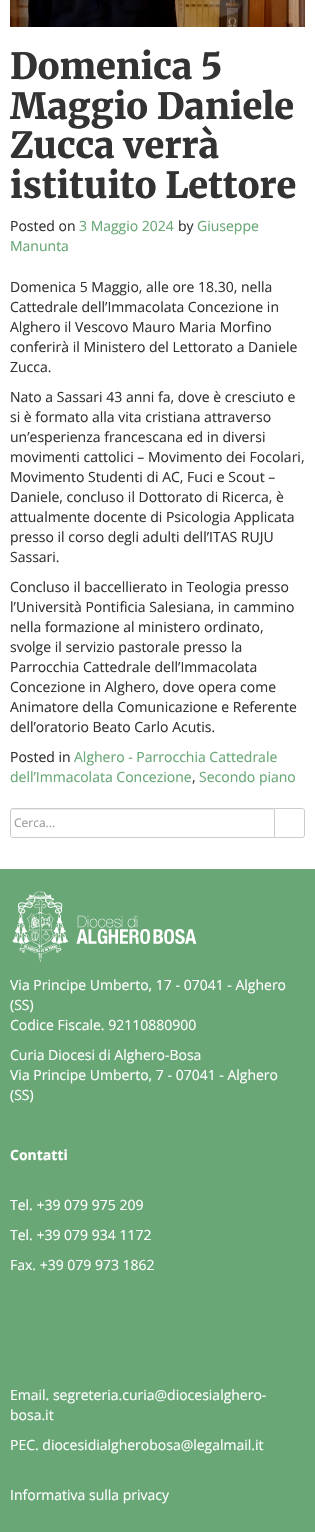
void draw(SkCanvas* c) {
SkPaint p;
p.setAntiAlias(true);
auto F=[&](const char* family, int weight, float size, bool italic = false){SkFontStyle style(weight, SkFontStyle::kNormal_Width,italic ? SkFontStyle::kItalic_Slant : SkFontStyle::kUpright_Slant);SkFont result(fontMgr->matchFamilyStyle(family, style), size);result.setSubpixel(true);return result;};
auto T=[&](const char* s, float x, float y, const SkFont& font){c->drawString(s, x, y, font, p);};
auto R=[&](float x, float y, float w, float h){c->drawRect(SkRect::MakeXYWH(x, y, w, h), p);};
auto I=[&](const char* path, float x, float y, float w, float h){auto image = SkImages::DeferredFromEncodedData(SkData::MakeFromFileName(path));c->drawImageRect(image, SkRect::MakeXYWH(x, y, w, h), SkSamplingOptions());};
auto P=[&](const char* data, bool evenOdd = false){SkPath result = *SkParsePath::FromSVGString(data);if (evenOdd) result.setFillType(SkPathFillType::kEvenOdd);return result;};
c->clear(0xffffffff);
I("1.png",10,0,295,27);
auto f1 = F("Merriweather",900,36);
p.setColor(0xff333333);
T("Domenica 5",10,79,f1);
T("Maggio Daniele",10,119,f1);
T("Zucca verrà",10,158,f1);
T("istituito Lettore",10,198,f1);
auto f2 = F("Open Sans",400,14);
T("Posted on",10,231,f2);
p.setColor(0xff69a776);
T("3 Maggio 2024",79,231,f2);
p.setColor(0xff333333);
T("by",178,231,f2);
p.setColor(0xff69a776);
T("Giuseppe",197,231,f2);
T("Manunta",10,251,f2);
p.setColor(0xff333333);
T("Domenica 5 Maggio, alle ore 18.30, nella",10,292,f2);
T("Cattedrale dell’Immacolata Concezione in",10,312,f2);
T("Alghero il Vescovo Mauro Maria Morfino",10,332,f2);
T("conferirà il Ministero del Lettorato a Daniele",10,352,f2);
T("Zucca.",10,372,f2);
T("Nato a Sassari 43 anni fa, dove è cresciuto e",10,402,f2);
T("si è formato alla vita cristiana attraverso",10,422,f2);
T("un’esperienza francescana ed in diversi",10,442,f2);
T("movimenti cattolici – Movimento dei Focolari,",10,462,f2);
T("Movimento Studenti di AC, Fuci e Scout –",10,482,f2);
T("Daniele, concluso il Dottorato di Ricerca, è",10,502,f2);
T("attualmente docente di Psicologia Applicata",10,522,f2);
T("presso il corso degli adulti dell’ITAS RUJU",10,542,f2);
T("Sassari.",10,562,f2);
T("Concluso il baccellierato in Teologia presso",10,592,f2);
T("l’Università Pontificia Salesiana, in cammino",10,612,f2);
T("nella formazione al ministero ordinato,",10,632,f2);
T("svolge il servizio pastorale presso la",10,652,f2);
T("Parrocchia Cattedrale dell’Immacolata",10,672,f2);
T("Concezione in Alghero, dove opera come",10,692,f2);
T("Animatore della Comunicazione e Referente",10,712,f2);
T("dell’oratorio Beato Carlo Acutis.",10,732,f2);
T("Posted in",10,762,f2);
p.setColor(0xff69a776);
T("Alghero - Parrocchia Cattedrale",74,762,f2);
T("dell’Immacolata Concezione",10,782,f2);
p.setColor(0xff333333);
T(",",192,782,f2);
p.setColor(0xff69a776);
T("Secondo piano",199,782,f2);
p.setStroke(true);
p.setStrokeWidth(1);
p.setColor(0xffcccccc);
c->drawPath(P("M274.5 808.5h27.5c1.5 0 2.5 1 2.5 2.5v24c0 1.5-1 2.5-2.5 2.5h-27.5z"),p);
p.setStroke(false);
p.setColor(0xffffffff);
c->drawPath(P("M13 808h262v30h-262c-1.5 0-3-1.5-3-3v-24c0-1.5 1.5-3 3-3z"),p);
p.setColor(0xffececec);
c->drawPath(P("M13 810h261v-1h-261c-1 0-2 1-2 2c0-1 1-1 2-1zm-2 26v-1z",true),p);
p.setStroke(true);
p.setColor(0xffcccccc);
c->drawPath(P("M13 808.5h261.5v29h-261.5c-1.5 0-2.5-1-2.5-2.5v-24c0-1.5 1-2.5 2.5-2.5z"),p);
auto f3 = F("Open Sans",400,12);
p.setStroke(false);
p.setColor(0xff999999);
T("Cerca...",14,827,f3);
p.setColor(0xff69a776);
R(0,869,315,663);
I("2.png",12,891,185,72);
p.setColor(0xffffffff);
T("Via Principe Umberto, 17 - 07041 - Alghero",10,990,f2);
T("(SS)",10,1010,f2);
T("Codice Fiscale. 92110880900",10,1030,f2);
T("Curia Diocesi di Alghero-Bosa",10,1060,f2);
T("Via Principe Umberto, 7 - 07041 - Alghero",10,1080,f2);
T("(SS)",10,1100,f2);
auto f4 = F("Open Sans",700,14);
T("Contatti",10,1160,f4);
T("Tel. +39 079 975 209",10,1210,f2);
T("Tel. +39 079 934 1172",10,1240,f2);
T("Fax. +39 079 973 1862",10,1270,f2);
T("Email. segreteria.curia@diocesialghero-",10,1400,f2);
T("bosa.it",10,1420,f2);
T("PEC. diocesidialgherobosa@legalmail.it",10,1450,f2);
T("Informativa sulla privacy",10,1500,f2);
}
